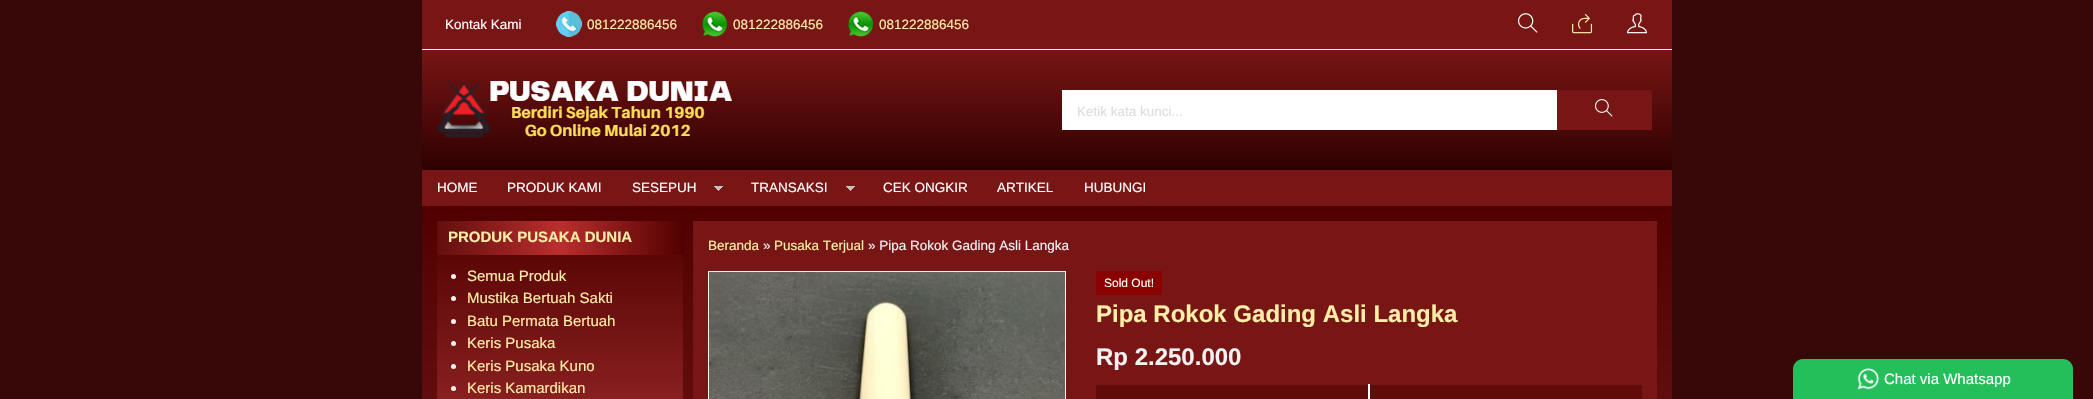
void draw(SkCanvas* c) {
SkPaint p;
p.setAntiAlias(true);
auto F=[&](const char* family, int weight, float size, bool italic = false){SkFontStyle style(weight, SkFontStyle::kNormal_Width,italic ? SkFontStyle::kItalic_Slant : SkFontStyle::kUpright_Slant);SkFont result(fontMgr->matchFamilyStyle(family, style), size);result.setSubpixel(true);return result;};
auto T=[&](const char* s, float x, float y, const SkFont& font){c->drawString(s, x, y, font, p);};
auto R=[&](float x, float y, float w, float h){c->drawRect(SkRect::MakeXYWH(x, y, w, h), p);};
auto I=[&](const char* path, float x, float y, float w, float h){auto image = SkImages::DeferredFromEncodedData(SkData::MakeFromFileName(path));c->drawImageRect(image, SkRect::MakeXYWH(x, y, w, h), SkSamplingOptions());};
auto P=[&](const char* data, bool evenOdd = false){SkPath result = *SkParsePath::FromSVGString(data);if (evenOdd) result.setFillType(SkPathFillType::kEvenOdd);return result;};
c->clear(0xff380707);
p.setColor(0xff781515);
R(422,0,1250,49);
p.setColor(0xfff2f2f2);
R(422,49,1250,1);
auto f1 = F("Liberation Sans",400,13.5);
p.setColor(0xffffffff);
T("Kontak Kami",445,29,f1);
I("1.png",556,11,26,26);
p.setColor(0xffffeea8);
T("081222886456",587,29,f1);
I("2.png",702,11,26,26);
T("081222886456",733,29,f1);
I("2.png",848,11,26,26);
T("081222886456",879,29,f1);
I("3.png",1518,13,20,20);
I("4.png",1572,14,21,20);
I("5.png",1627,13,20,21);
{
const SkColor colors[] = {0xff781515,0xff2f0000};
const float stops[] = {0,1};
const SkPoint ends[] = {{1047,50}, {1047,170}};
p.setShader(SkGradientShader::MakeLinear(ends, colors, stops, 2, SkTileMode::kClamp));
p.setAlpha(255);
}
R(422,50,1250,120);
I("6.png",437,81,295,57);
p.setShader(nullptr);
p.setColor(0xffffffff);
R(1062,90,495,40);
p.setColor(0xffdddddd);
T("Ketik kata kunci...",1077,116,f1);
p.setColor(0xff781515);
R(1557,90,95,40);
I("7.png",1595,99,18,18);
R(422,170,1250,36);
p.setColor(0xffffffff);
T("HOME",437,192,f1);
T("PRODUK KAMI",507,192,f1);
I("8.png",714,186,9,5);
T("SESEPUH",632,192,f1);
I("8.png",846,186,9,5);
T("TRANSAKSI",751,192,f1);
T("CEK ONGKIR",883,192,f1);
T("ARTIKEL",997,192,f1);
T("HUBUNGI",1084,192,f1);
{
const SkColor colors[] = {0xff510000,0xffcb6060,0xff6b1c1c};
const float stops[] = {0,.5,1};
const SkPoint ends[] = {{1047,206}, {1047,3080}};
p.setShader(SkGradientShader::MakeLinear(ends, colors, stops, 3, SkTileMode::kClamp));
p.setAlpha(255);
}
R(422,206,1250,193);
{
const SkColor colors[] = {0xff510000,0xffb73b3b,0xff6c2424};
const float stops[] = {0,.5,1};
const SkPoint ends[] = {{560,221}, {560,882}};
p.setShader(SkGradientShader::MakeLinear(ends, colors, stops, 3, SkTileMode::kClamp));
p.setAlpha(255);
}
R(437,255,246,144);
{
const SkColor colors[] = {0xff510000,0xffbb2e2e,0xff620e0e};
const float stops[] = {0,.5,1};
const SkPoint ends[] = {{684,238}, {436,238}};
p.setShader(SkGradientShader::MakeLinear(ends, colors, stops, 3, SkTileMode::kClamp));
p.setAlpha(255);
}
R(437,221,247,34);
auto f2 = F("Liberation Sans",700,15);
p.setShader(nullptr);
p.setColor(0xffffeea8);
T("PRODUK PUSAKA DUNIA",448,242,f2);
p.setColor(0xfff2f2f2);
c->drawCircle(453.5,276.5,2.5,p);
auto f3 = F("Liberation Sans",400,15);
p.setColor(0xffffeea8);
T("Semua Produk",467,281,f3);
p.setColor(0xfff2f2f2);
c->drawCircle(453.5,298.5,2.5,p);
p.setColor(0xffffeea8);
T("Mustika Bertuah Sakti",467,303,f3);
p.setColor(0xfff2f2f2);
c->drawCircle(453.5,321.5,2.5,p);
p.setColor(0xffffeea8);
T("Batu Permata Bertuah",467,326,f3);
p.setColor(0xfff2f2f2);
c->drawCircle(453.5,343.5,2.5,p);
p.setColor(0xffffeea8);
T("Keris Pusaka",467,348,f3);
p.setColor(0xfff2f2f2);
c->drawCircle(453.5,366.5,2.5,p);
p.setColor(0xffffeea8);
T("Keris Pusaka Kuno",467,371,f3);
p.setColor(0xfff2f2f2);
c->drawCircle(453.5,388.5,2.5,p);
p.setColor(0xffffeea8);
T("Keris Kamardikan",467,393,f3);
p.setColor(0xff781515);
R(693,221,964,178);
p.setColor(0xffffeea8);
T("Beranda",708,250,f1);
p.setColor(0xfff2f2f2);
T("»",763,250,f1);
p.setColor(0xffffeea8);
T("Pusaka Terjual",774,250,f1);
p.setColor(0xfff2f2f2);
T("» Pipa Rokok Gading Asli Langka",868,250,f1);
p.setStroke(true);
p.setStrokeWidth(1);
c->drawRect(SkRect::MakeXYWH(708.5,271.5,357,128),p);
I("9.png",709,272,356,127);
p.setStroke(false);
p.setColor(0xff8a0101);
R(1096,271,66,24);
auto f4 = F("Liberation Sans",400,12);
p.setColor(0xffffffff);
T("Sold Out!",1104,287,f4);
auto f5 = F("Liberation Sans",700,24);
p.setColor(0xffffeea8);
T("Pipa Rokok Gading Asli Langka",1096,322,f5);
p.setColor(0xfff2f2f2);
T("Rp 2.250.000",1096,365,f5);
p.setColor(0xff620b0b);
R(1096,385,546,14);
p.setColor(0xffffffff);
R(1368,384,2,15);
p.setColor(0xff24be5b);
c->drawPath(P("M1803 359h260c5.5 0 10 4.5 10 10v30h-280v-30c0-5.5 4.5-10 10-10z"),p);
I("10.png",1857,368,23,22);
p.setColor(0xffffffff);
T("Chat via Whatsapp",1884,384,f3);
}
